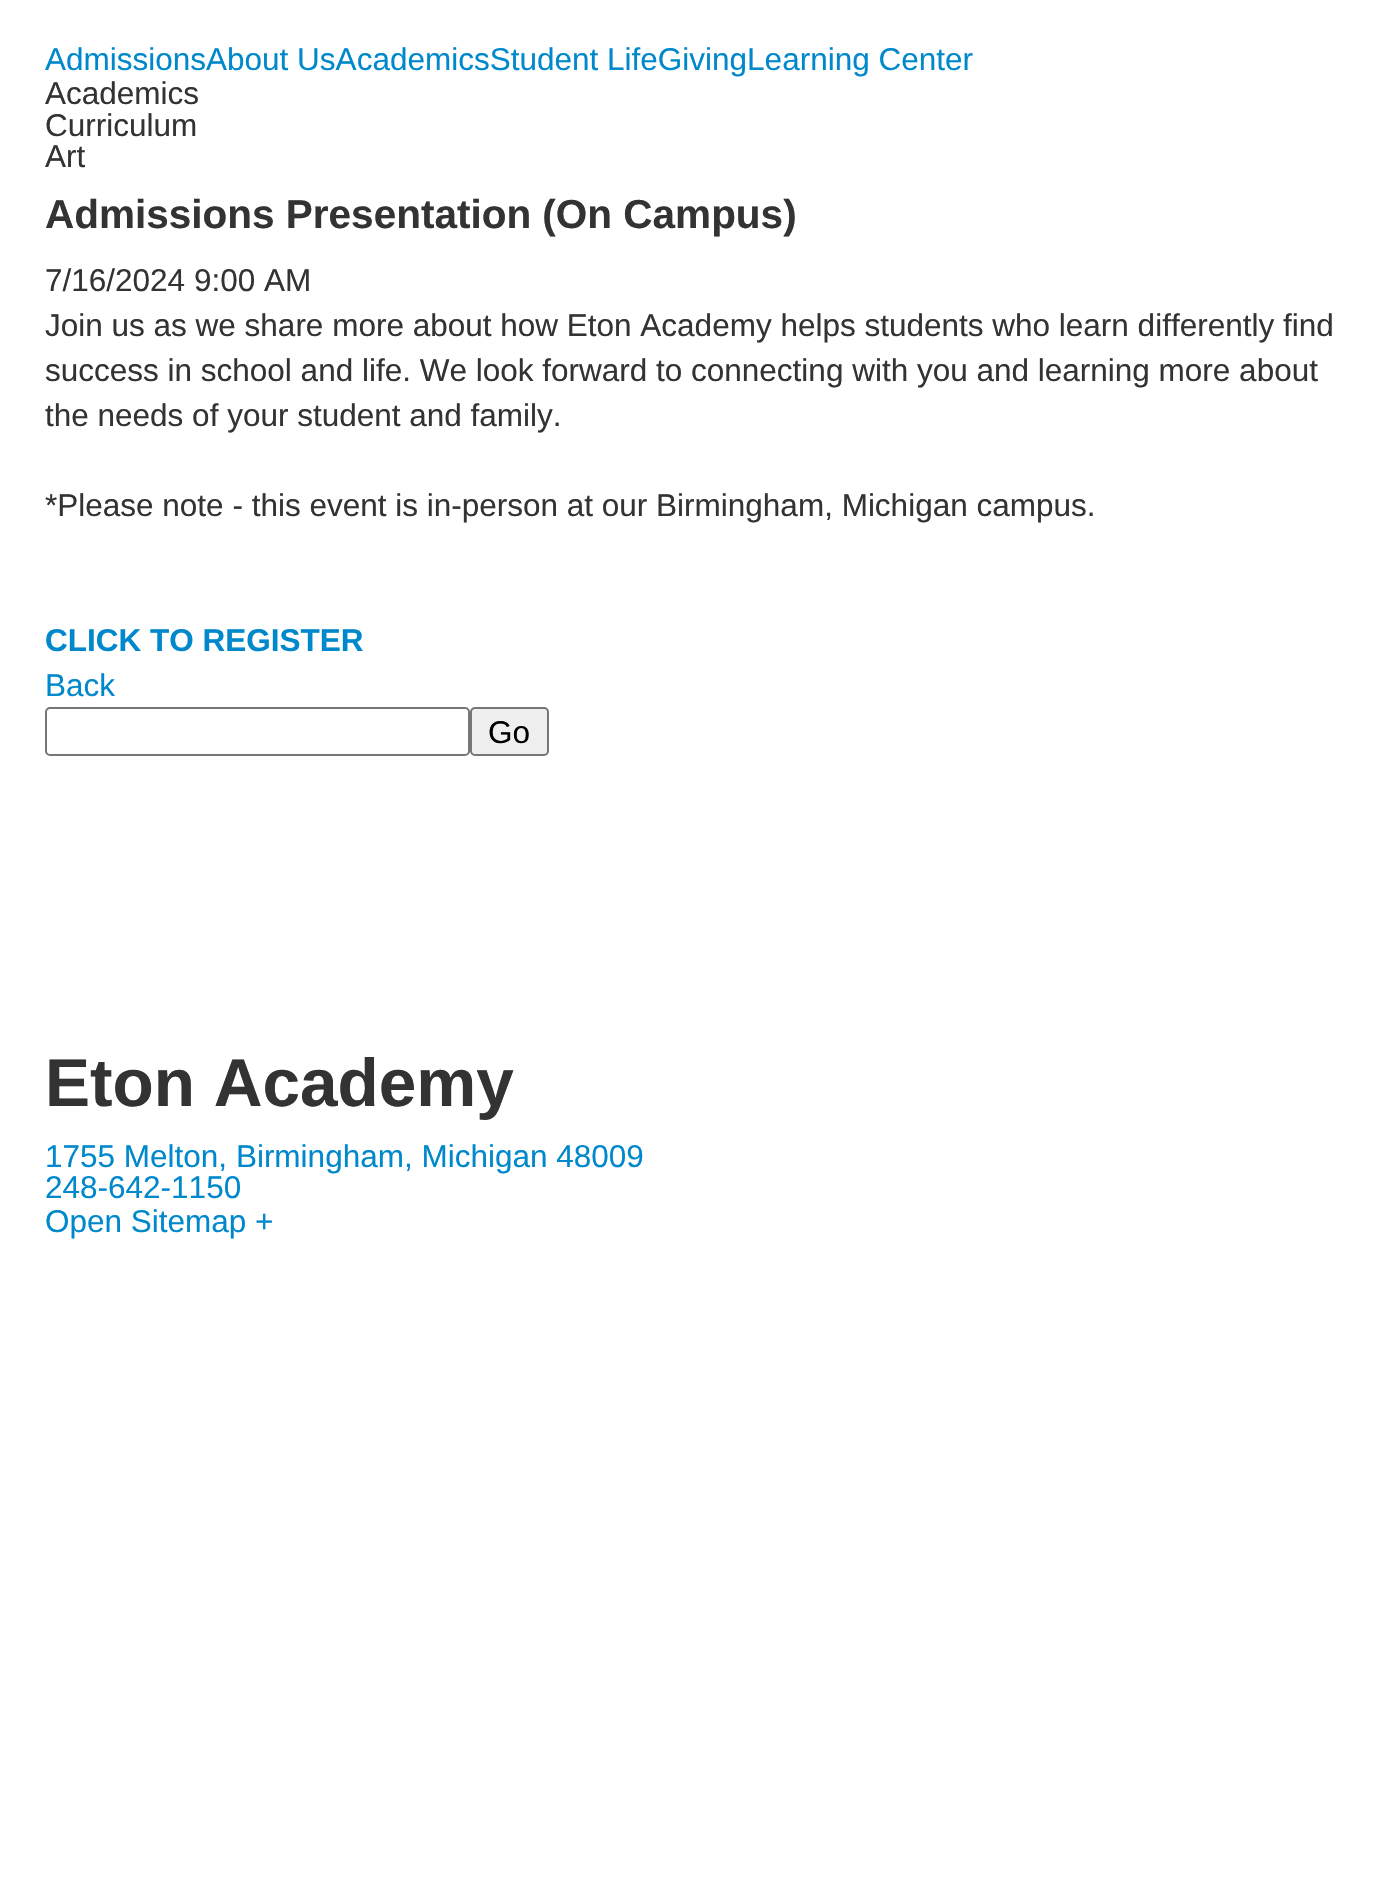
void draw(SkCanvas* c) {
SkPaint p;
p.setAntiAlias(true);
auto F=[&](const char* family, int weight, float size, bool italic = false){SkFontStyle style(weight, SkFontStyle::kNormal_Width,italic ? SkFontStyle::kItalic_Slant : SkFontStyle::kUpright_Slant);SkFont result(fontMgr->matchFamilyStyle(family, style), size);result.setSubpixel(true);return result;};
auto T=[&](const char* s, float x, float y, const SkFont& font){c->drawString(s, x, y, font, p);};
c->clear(0xffffffff);
auto f1 = F("Liberation Sans",400,31.5);
p.setColor(0xff0088cc);
T("AdmissionsAbout UsAcademicsStudent LifeGivingLearning Center",45,70,f1);
p.setColor(0xff333333);
T("Academics",45,104,f1);
T("Curriculum",45,136,f1);
T("Art",45,167,f1);
auto f2 = F("Liberation Sans",700,40.5);
T("Admissions Presentation (On Campus)",45,228,f2);
T("7/16/2024 9:00 AM",45,291,f1);
T("Join us as we share more about how Eton Academy helps students who learn differently find",45,336,f1);
T("success in school and life. We look forward to connecting with you and learning more about",45,381,f1);
T("the needs of your student and family.",45,426,f1);
T("*Please note - this event is in-person at our Birmingham, Michigan campus.",45,516,f1);
auto f3 = F("Liberation Sans",700,31.5);
p.setColor(0xff0088cc);
T("CLICK TO REGISTER",45,651,f3);
T("Back",45,696,f1);
p.setStroke(true);
p.setStrokeWidth(2);
p.setColor(0xff767676);
c->drawRoundRect(SkRect::MakeXYWH(46,708,423,47),4,4,p);
p.setStroke(false);
p.setColor(0xffefefef);
c->drawRoundRect(SkRect::MakeXYWH(471,708,77,47),4,4,p);
p.setStroke(true);
p.setColor(0xff767676);
c->drawRoundRect(SkRect::MakeXYWH(471,708,77,47),4,4,p);
p.setStroke(false);
p.setColor(0xff000000);
T("Go",488,743,f1);
auto f4 = F("Liberation Sans",700,67.5);
p.setColor(0xff333333);
T("Eton Academy",45,1106,f4);
p.setColor(0xff0088cc);
T("1755 Melton, Birmingham, Michigan 48009",45,1167,f1);
T("248-642-1150",45,1198,f1);
T("Open Sitemap +",45,1232,f1);
}
